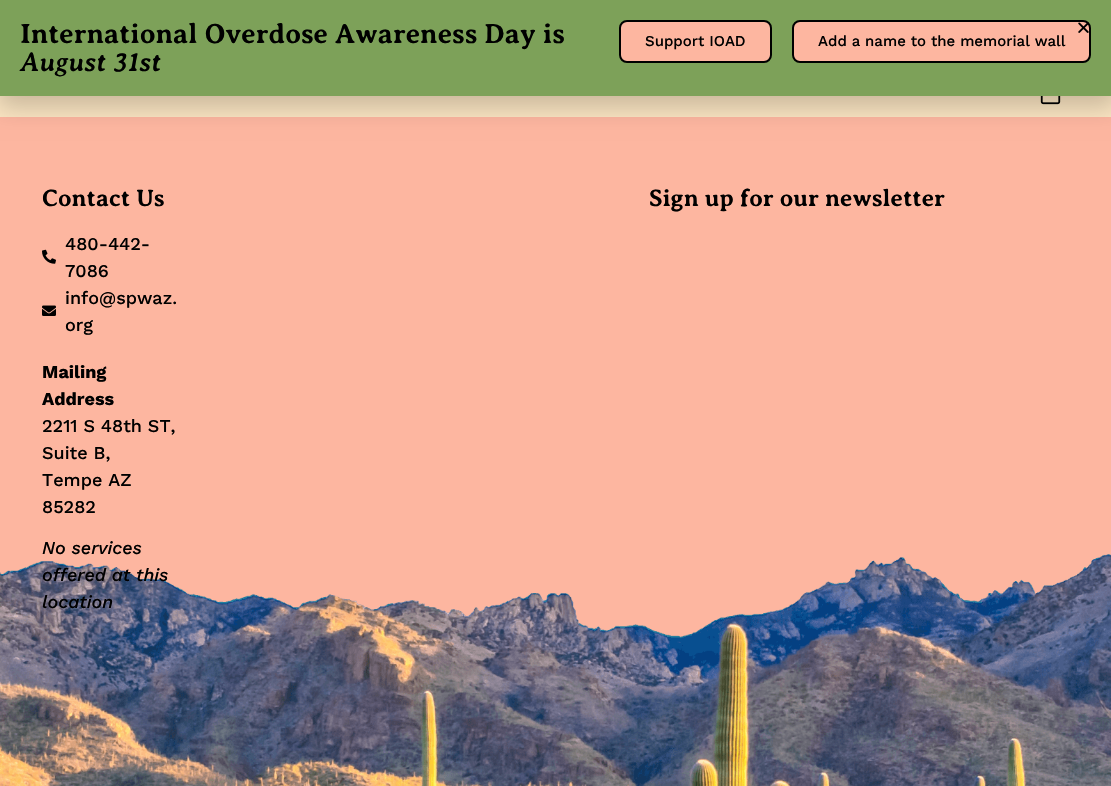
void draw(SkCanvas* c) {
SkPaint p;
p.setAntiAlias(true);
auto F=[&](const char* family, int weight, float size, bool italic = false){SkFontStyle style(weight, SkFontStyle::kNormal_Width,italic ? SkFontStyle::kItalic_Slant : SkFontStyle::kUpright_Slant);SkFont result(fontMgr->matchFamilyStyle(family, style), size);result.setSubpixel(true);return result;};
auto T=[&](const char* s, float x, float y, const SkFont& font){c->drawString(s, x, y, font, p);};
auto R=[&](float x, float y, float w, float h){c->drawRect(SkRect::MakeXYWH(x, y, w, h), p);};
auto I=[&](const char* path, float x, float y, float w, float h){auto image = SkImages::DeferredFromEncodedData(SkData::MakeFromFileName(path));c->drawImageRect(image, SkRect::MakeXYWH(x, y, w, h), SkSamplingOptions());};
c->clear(0xfffdb6a0);
p.setColor(0xfffbe5c2);
R(0,96,1111,21);
I("2.png",1040,96,21,9);
p.setColor(0x33000000);
p.setMaskFilter(SkMaskFilter::MakeBlur(kNormal_SkBlurStyle, 11.5));
c->drawRect(SkRect::MakeXYWH(-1,5,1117,102),p);
p.setMaskFilter(nullptr);
p.setColor(0xff7da159);
R(0,0,1111,96);
auto f1 = F("Averia Serif Libre",700,28);
p.setColor(0xff000000);
T("International Overdose Awareness Day is",20,43,f1);
auto f2 = F("Averia Serif Libre",700,28,true);
T("August 31st",20,71,f2);
p.setColor(0xfffdb6a0);
c->drawRoundRect(SkRect::MakeXYWH(620,21,151,41),7,7,p);
p.setStroke(true);
p.setStrokeWidth(2);
p.setColor(0xff000000);
c->drawRoundRect(SkRect::MakeXYWH(620,21,151,41),7,7,p);
auto f3 = F("Work Sans",500,15);
p.setStroke(false);
T("Support IOAD",645,46,f3);
p.setColor(0xfffdb6a0);
c->drawRoundRect(SkRect::MakeXYWH(793,21,297,41),7,7,p);
p.setStroke(true);
p.setColor(0xff000000);
c->drawRoundRect(SkRect::MakeXYWH(793,21,297,41),7,7,p);
p.setStroke(false);
T("Add a name to the memorial wall",818,46,f3);
I("1.png",1078,22,11,11);
I("3.png",0,554,1111,232);
auto f4 = F("Averia Serif Libre",700,24);
T("Contact Us",42,206,f4);
I("4.png",42,249,14,15);
auto f5 = F("Work Sans",500,18);
T("480-442-",65,250,f5);
T("7086",65,277,f5);
I("5.png",42,305,14,11);
T("info@spwaz.",65,304,f5);
T("org",65,331,f5);
auto f6 = F("Work Sans",700,18);
T("Mailing",42,378,f6);
T("Address",42,405,f6);
T("2211 S 48th ST,",42,432,f5);
T("Suite B,",42,459,f5);
T("Tempe AZ",42,486,f5);
T("85282",42,513,f5);
auto f7 = F("Work Sans",500,18,true);
T("No services",42,554,f7);
T("offered at this",42,581,f7);
T("location",42,608,f7);
T("Sign up for our newsletter",649,206,f4);
}
